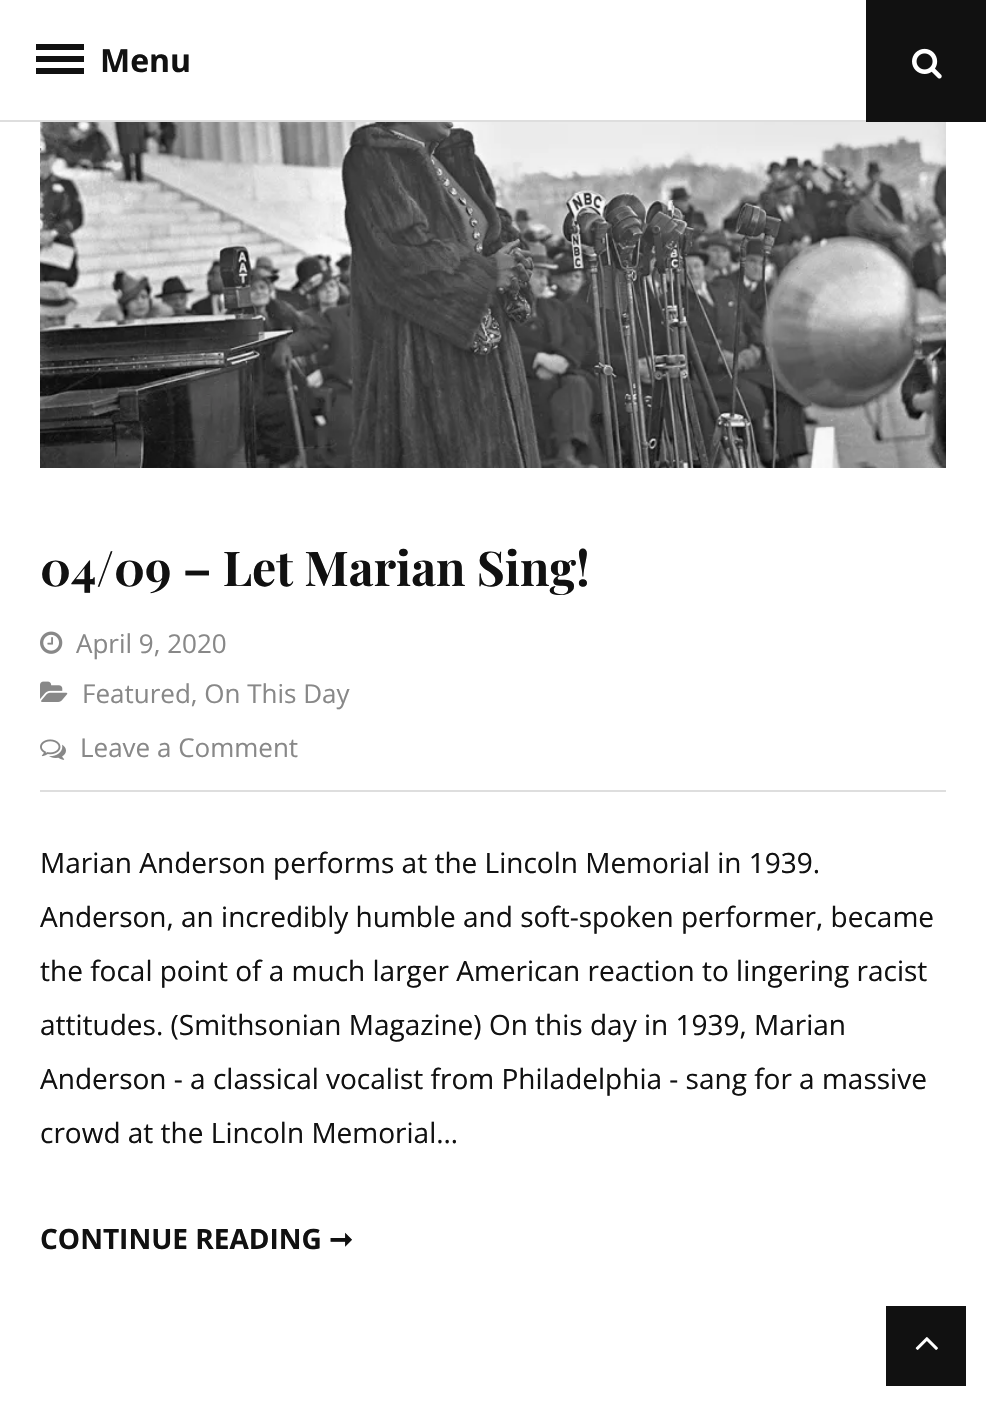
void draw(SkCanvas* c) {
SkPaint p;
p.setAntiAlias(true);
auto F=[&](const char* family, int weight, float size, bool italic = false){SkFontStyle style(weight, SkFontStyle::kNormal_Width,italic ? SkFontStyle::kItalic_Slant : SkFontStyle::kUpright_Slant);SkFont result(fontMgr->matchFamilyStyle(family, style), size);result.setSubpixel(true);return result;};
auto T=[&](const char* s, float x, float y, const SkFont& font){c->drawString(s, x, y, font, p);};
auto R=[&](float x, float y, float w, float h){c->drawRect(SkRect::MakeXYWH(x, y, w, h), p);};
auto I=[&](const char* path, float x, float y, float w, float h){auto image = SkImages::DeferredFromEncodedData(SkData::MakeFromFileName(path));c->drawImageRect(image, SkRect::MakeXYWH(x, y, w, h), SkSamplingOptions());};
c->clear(0xffffffff);
p.setColor(0xffdedede);
R(0,120,866,2);
p.setColor(0xff111111);
R(36,44,48,6);
R(36,56,48,6);
R(36,68,48,6);
auto f1 = F("Open Sans",700,32);
T("Menu",100,72,f1);
R(866,0,120,122);
I("1.png",912,48,30,31);
I("2.png",40,122,906,346);
auto f2 = F("Playfair Display",700,48);
T("04/09 – Let Marian Sing!",40,586,f2);
p.setColor(0xffdedede);
R(40,790,906,2);
I("3.png",40,631,23,23);
auto f3 = F("Open Sans",400,26);
p.setColor(0xff888888);
T("April 9, 2020",76,653,f3);
I("4.png",40,681,28,21);
T("Featured, On This Day",82,703,f3);
I("5.png",40,739,26,21);
T("Leave a Comment",80,757,f3);
auto f4 = F("Open Sans",400,28);
p.setColor(0xff111111);
T("Marian Anderson performs at the Lincoln Memorial in 1939.",40,873,f4);
T("Anderson, an incredibly humble and soft-spoken performer, became",40,927,f4);
T("the focal point of a much larger American reaction to lingering racist",40,981,f4);
T("attitudes. (Smithsonian Magazine) On this day in 1939, Marian",40,1035,f4);
T("Anderson - a classical vocalist from Philadelphia - sang for a massive",40,1089,f4);
T("crowd at the Lincoln Memorial…",40,1143,f4);
auto f5 = F("Open Sans",700,28);
T("CONTINUE READING",40,1249,f5);
auto f6 = F("DejaVu Sans",700,28);
T("➞",329,1249,f6);
R(886,1306,80,80);
I("6.png",915,1337,23,13);
}
